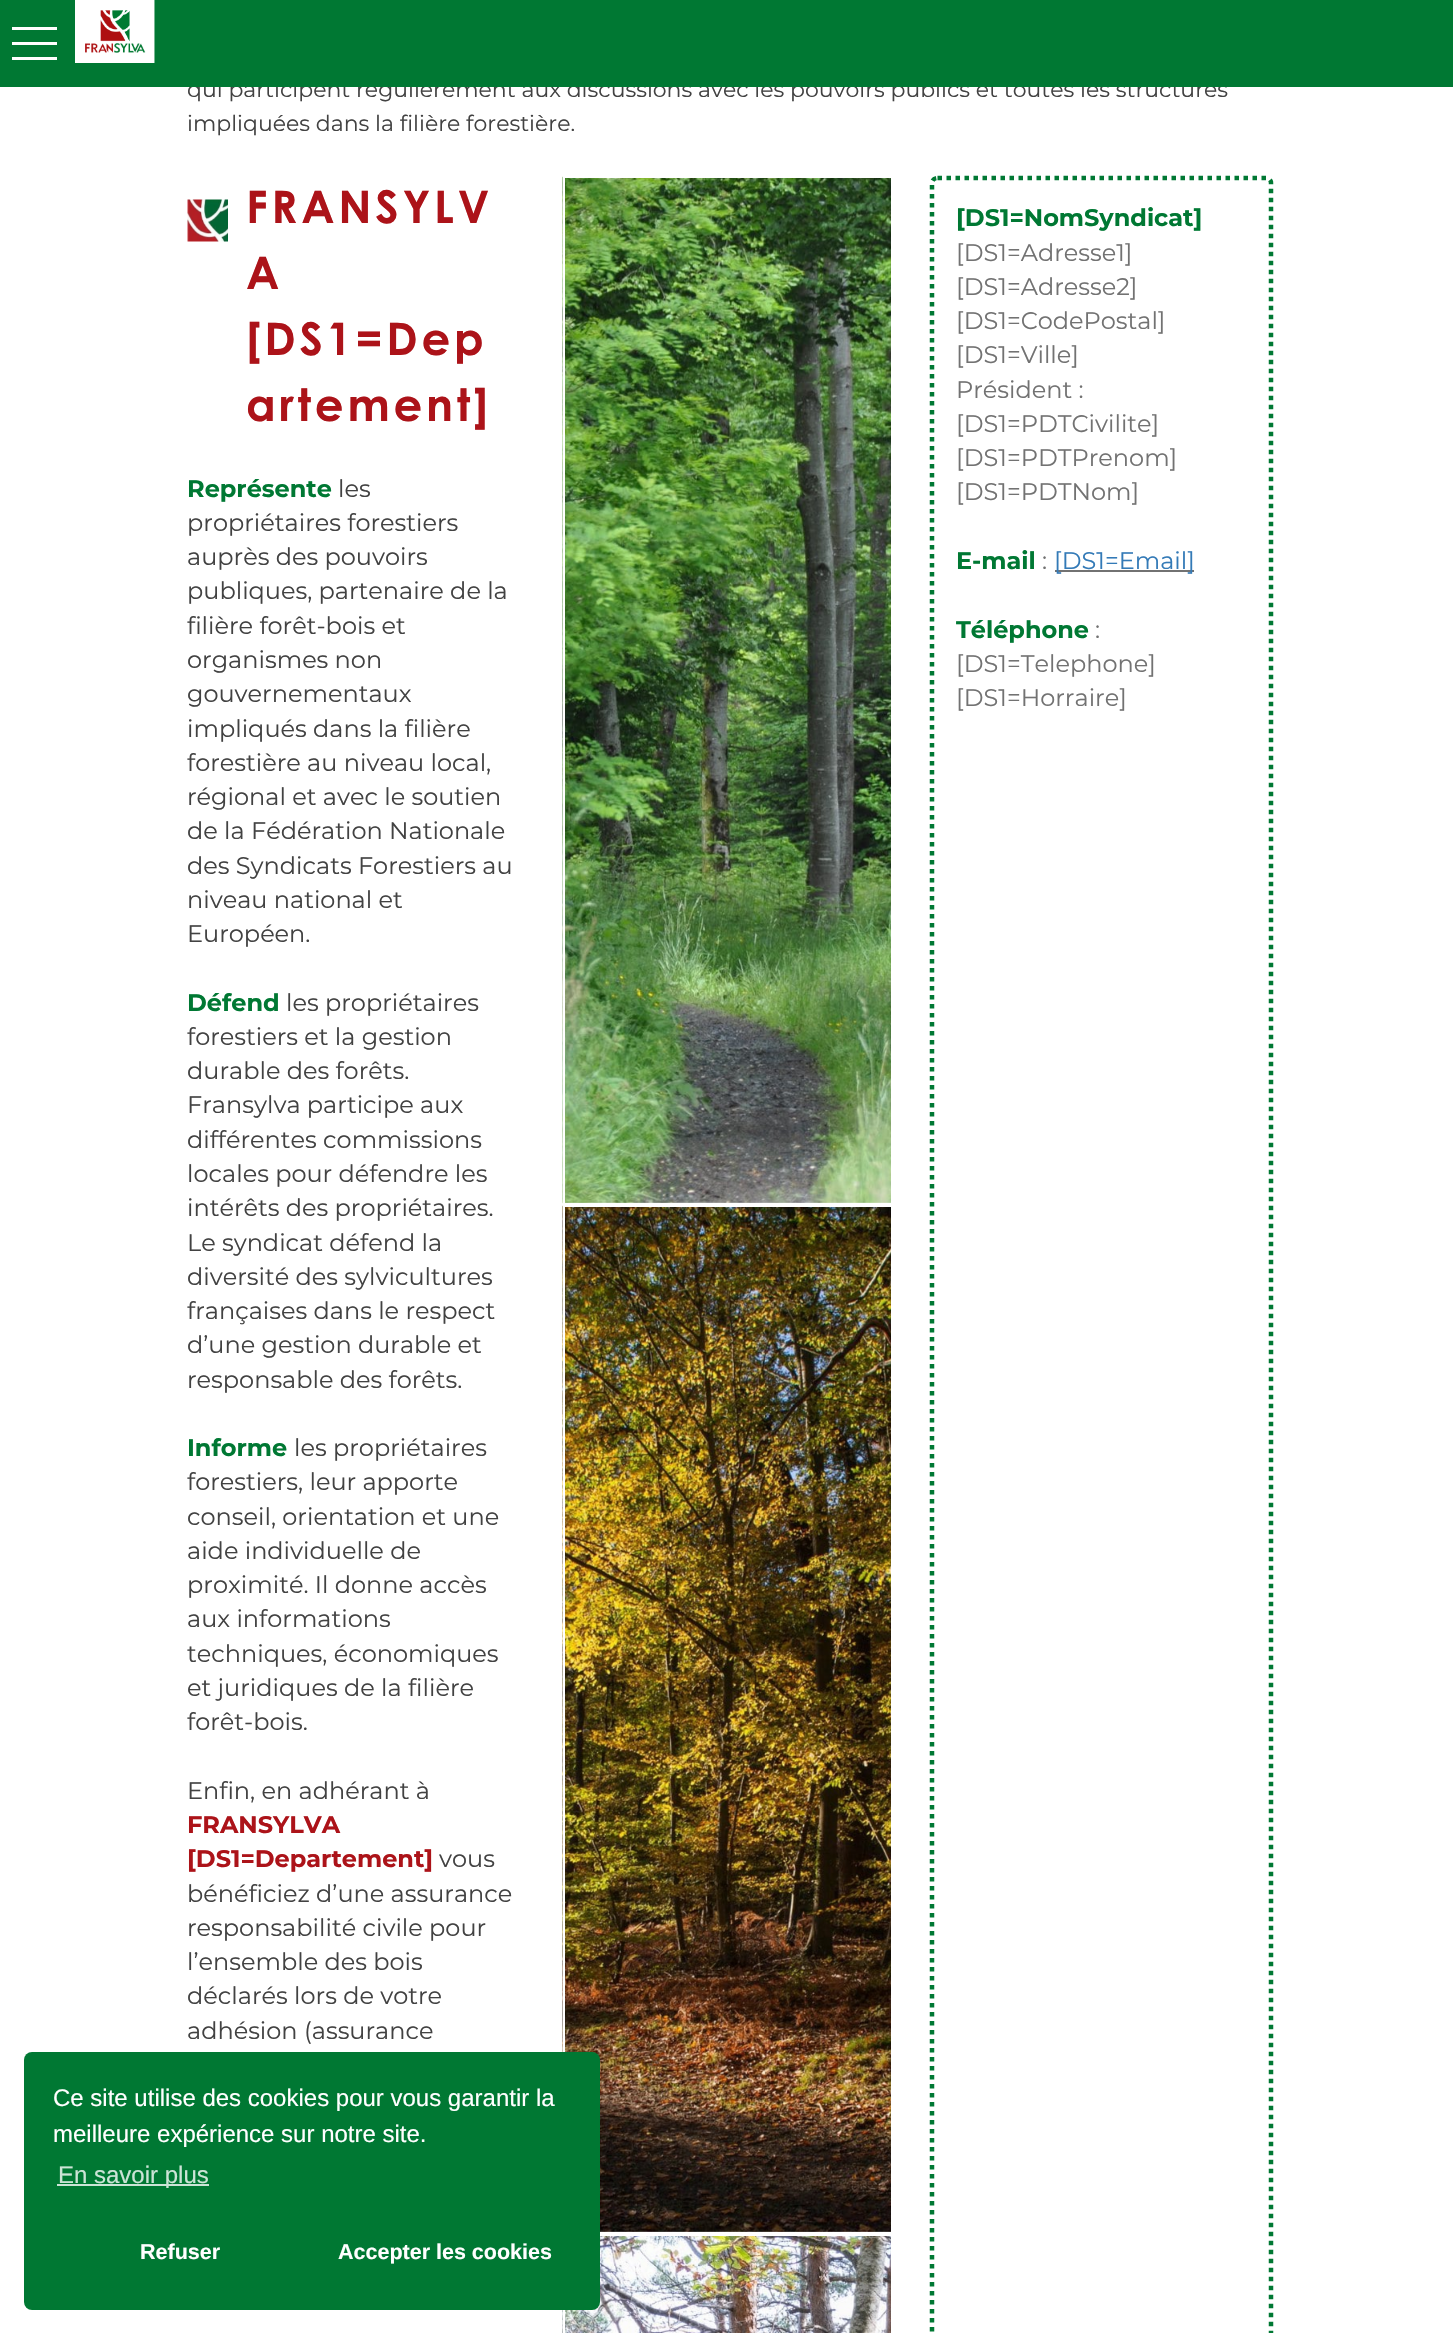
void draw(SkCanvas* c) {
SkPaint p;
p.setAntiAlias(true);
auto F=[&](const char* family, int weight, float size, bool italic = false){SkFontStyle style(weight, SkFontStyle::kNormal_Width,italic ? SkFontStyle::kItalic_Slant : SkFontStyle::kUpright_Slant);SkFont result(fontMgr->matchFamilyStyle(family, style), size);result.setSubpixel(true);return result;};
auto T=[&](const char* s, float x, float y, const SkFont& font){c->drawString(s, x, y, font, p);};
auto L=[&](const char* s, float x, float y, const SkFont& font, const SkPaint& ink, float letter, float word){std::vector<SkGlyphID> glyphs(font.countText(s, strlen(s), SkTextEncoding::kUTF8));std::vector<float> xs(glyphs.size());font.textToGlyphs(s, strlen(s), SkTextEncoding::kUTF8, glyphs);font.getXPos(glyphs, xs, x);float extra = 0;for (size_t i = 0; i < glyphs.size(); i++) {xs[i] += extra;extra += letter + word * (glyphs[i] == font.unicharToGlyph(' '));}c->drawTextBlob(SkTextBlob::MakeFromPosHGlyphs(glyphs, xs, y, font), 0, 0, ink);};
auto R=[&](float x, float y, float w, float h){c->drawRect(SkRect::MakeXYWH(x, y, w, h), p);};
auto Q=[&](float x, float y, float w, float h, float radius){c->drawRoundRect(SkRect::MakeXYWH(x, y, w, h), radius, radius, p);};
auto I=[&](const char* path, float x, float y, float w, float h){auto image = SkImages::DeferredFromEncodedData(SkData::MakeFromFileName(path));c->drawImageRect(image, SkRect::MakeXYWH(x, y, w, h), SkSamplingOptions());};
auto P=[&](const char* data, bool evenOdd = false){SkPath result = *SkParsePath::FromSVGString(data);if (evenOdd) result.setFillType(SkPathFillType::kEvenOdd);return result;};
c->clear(0xffffffff);
auto f1 = F("Montserrat",400,22);
p.setColor(0xff424242);
T("qui participent régulièrement aux discussions avec les pouvoirs publics et toutes les structures",187,97,f1);
p.setColor(0xff007833);
R(0,0,1453,87);
p.setColor(0xffffffff);
R(12,42,45,3);
R(12,27,45,3);
R(12,57,45,3);
I("1.png",75,0,80,63);
p.setColor(0xff424242);
T("impliquées dans la filière forestière.",187,131,f1);
I("2.png",187,199,41,43);
auto f2 = F("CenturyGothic",700,45);
p.setColor(0xffac1319);
L("FRANSYLV",246,223,f2,p,3.75,0);
L("A",246,289,f2,p,3.75,0);
L("[DS1=Dep",246,355,f2,p,3.75,0);
L("artement]",246,421,f2,p,3.75,0);
auto f3 = F("Montserrat",700,24);
p.setColor(0xff007833);
T("Représente",187,497,f3);
auto f4 = F("Montserrat",400,24);
p.setColor(0xff424242);
T("les",338,497,f4);
T("propriétaires forestiers",187,531,f4);
T("auprès des pouvoirs",187,565,f4);
T("publiques, partenaire de la",187,599,f4);
T("filière forêt-bois et",187,634,f4);
T("organismes non",187,668,f4);
T("gouvernementaux",187,702,f4);
T("impliqués dans la filière",187,737,f4);
T("forestière au niveau local,",187,771,f4);
T("régional et avec le soutien",187,805,f4);
T("de la Fédération Nationale",187,839,f4);
T("des Syndicats Forestiers au",187,874,f4);
T("niveau national et",187,908,f4);
T("Européen.",187,942,f4);
p.setColor(0xff007833);
T("Défend",187,1011,f3);
p.setColor(0xff424242);
T("les propriétaires",286,1011,f4);
T("forestiers et la gestion",187,1045,f4);
T("durable des forêts.",187,1079,f4);
T("Fransylva participe aux",187,1113,f4);
T("différentes commissions",187,1148,f4);
T("locales pour défendre les",187,1182,f4);
T("intérêts des propriétaires.",187,1216,f4);
T("Le syndicat défend la",187,1251,f4);
T("diversité des sylvicultures",187,1285,f4);
T("françaises dans le respect",187,1319,f4);
T("d’une gestion durable et",187,1353,f4);
T("responsable des forêts.",187,1388,f4);
p.setColor(0xff007833);
T("Informe",187,1456,f3);
p.setColor(0xff424242);
T("les propriétaires",294,1456,f4);
T("forestiers, leur apporte",187,1490,f4);
T("conseil, orientation et une",187,1525,f4);
T("aide individuelle de",187,1559,f4);
T("proximité. Il donne accès",187,1593,f4);
T("aux informations",187,1627,f4);
T("techniques, économiques",187,1662,f4);
T("et juridiques de la filière",187,1696,f4);
T("forêt-bois.",187,1730,f4);
T("Enfin, en adhérant à",187,1799,f4);
p.setColor(0xffac1319);
T("FRANSYLVA",187,1833,f3);
T("[DS1=Departement]",187,1867,f3);
p.setColor(0xff424242);
T("vous",439,1867,f4);
T("bénéficiez d’une assurance",187,1902,f4);
T("responsabilité civile pour",187,1936,f4);
T("l’ensemble des bois",187,1970,f4);
T("déclarés lors de votre",187,2004,f4);
T("adhésion (assurance",187,2039,f4);
I("3.png",562,176,329,1028);
p.setStroke(true);
p.setStrokeWidth(2);
p.setColor(0xffffffff);
c->drawRect(SkRect::MakeXYWH(564,177,328,1027),p);
I("4.png",562,1205,329,1027);
c->drawRect(SkRect::MakeXYWH(564,1206,328,1027),p);
I("5.png",562,2236,329,97);
c->drawRect(SkRect::MakeXYWH(564,2235,328,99),p);
p.setStrokeWidth(4.5);
p.setColor(0xff007833);
p.setPathEffect(SkDashPathEffect::Make({{4.5f,4.5f}}, 0));
c->drawPath(P("M937.5 178h328.5c3 0 5 2 5 5v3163.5c0 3-2 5.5-5 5.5h-328.5c-3 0-5.5-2.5-5.5-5.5v-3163.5c0-3 2.5-5 5.5-5z"),p);
p.setPathEffect(nullptr);
p.setStroke(false);
T("[DS1=NomSyndicat]",956,226,f3);
p.setColor(0xff727272);
T("[DS1=Adresse1]",956,261,f4);
T("[DS1=Adresse2]",956,295,f4);
T("[DS1=CodePostal]",956,329,f4);
T("[DS1=Ville]",956,363,f4);
T("Président :",956,398,f4);
T("[DS1=PDTCivilite]",956,432,f4);
T("[DS1=PDTPrenom]",956,466,f4);
T("[DS1=PDTNom]",956,500,f4);
p.setColor(0xff007833);
T("E-mail",956,569,f3);
p.setColor(0xff727272);
T(":",1042,569,f4);
R(1055,570,139,2);
p.setColor(0xff337ab7);
T("[DS1=Email]",1054,569,f4);
p.setColor(0xff007833);
T("Téléphone",956,638,f3);
p.setColor(0xff727272);
T(":",1095,638,f4);
T("[DS1=Telephone]",956,672,f4);
T("[DS1=Horraire]",956,706,f4);
p.setColor(0xff007833);
Q(24,2052,576,258,8);
auto f5 = F("Liberation Sans",400,24);
p.setColor(0xffffffff);
T("Ce site utilise des cookies pour vous garantir la",53,2106,f5);
T("meilleure expérience sur notre site.",53,2142,f5);
p.setColor(0xffcce4d6);
R(57,2184,152,2);
T("En savoir plus",58,2183,f5);
auto f6 = F("Liberation Sans",700,21.5);
p.setColor(0xffffffff);
T("Refuser",140,2259,f6);
T("Accepter les cookies",338,2259,f6);
}
